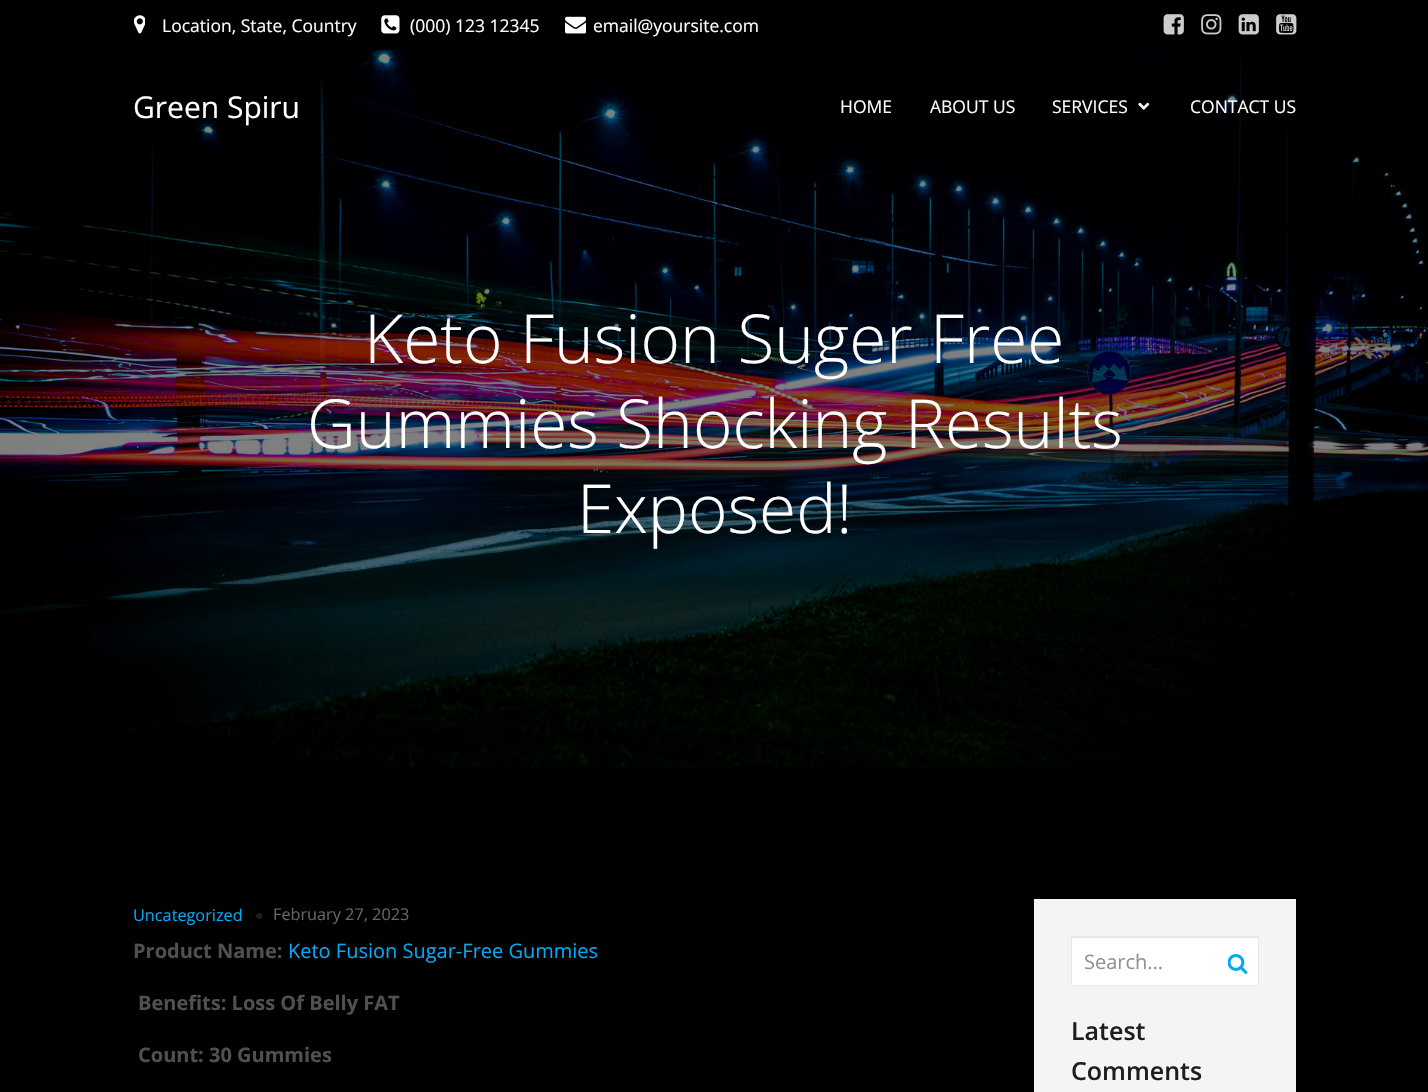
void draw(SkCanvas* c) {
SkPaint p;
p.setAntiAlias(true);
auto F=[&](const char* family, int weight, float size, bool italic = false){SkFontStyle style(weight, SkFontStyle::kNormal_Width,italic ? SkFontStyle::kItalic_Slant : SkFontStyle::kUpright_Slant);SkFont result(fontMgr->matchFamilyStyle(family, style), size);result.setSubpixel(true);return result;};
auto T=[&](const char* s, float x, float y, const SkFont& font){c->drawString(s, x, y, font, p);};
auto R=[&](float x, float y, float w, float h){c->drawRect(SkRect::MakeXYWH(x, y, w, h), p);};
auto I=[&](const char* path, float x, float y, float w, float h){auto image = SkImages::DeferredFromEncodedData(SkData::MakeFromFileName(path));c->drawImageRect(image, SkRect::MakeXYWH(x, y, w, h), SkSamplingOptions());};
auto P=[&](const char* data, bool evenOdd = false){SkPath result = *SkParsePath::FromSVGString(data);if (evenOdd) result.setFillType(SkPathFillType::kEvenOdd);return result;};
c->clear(0xff000000);
I("1.png",134,15,11,19);
auto f1 = F("Open Sans",400,17.5);
p.setColor(0xffffffff);
T("Location, State, Country",162,32,f1);
I("2.png",381,15,19,19);
T("(000) 123 12345",410,32,f1);
I("3.png",565,16,21,18);
T("email@yoursite.com",593,32,f1);
I("4.png",1163,14,21,21);
I("5.png",1201,14,21,21);
I("6.png",1238,14,21,21);
I("7.png",1276,14,21,21);
I("9.png",0,50,1428,718);
auto f2 = F("Open Sans",400,30);
T("Green Spiru",133,118,f2);
T("HOME",840,113,f1);
T("ABOUT US",930,113,f1);
T("SERVICES",1052,113,f1);
I("8.png",1138,102,12,8);
T("CONTACT US",1190,113,f1);
auto f3 = F("Open Sans",300,67.5);
T("Keto Fusion Suger Free",364,363,f3);
T("Gummies Shocking Results",307,448,f3);
T("Exposed!",577,533,f3);
auto f4 = F("Open Sans",400,16.25);
p.setColor(0xff03a9f4);
T("Uncategorized",133,921,f4);
I("10.png",256,913,7,6);
p.setColor(0xff656565);
T("February 27, 2023",273,920,f4);
auto f5 = F("Open Sans",700,20);
p.setColor(0xff505050);
T("Product Name:",133,958,f5);
auto f6 = F("Open Sans",400,20);
p.setColor(0xff03a9f4);
T("Keto Fusion Sugar-Free Gummies",288,958,f6);
p.setColor(0xff505050);
T("Benefits: Loss Of Belly FAT",138,1010,f5);
T("Count: 30 Gummies",138,1062,f5);
p.setColor(0xfff4f4f7);
R(1034,899,262,193);
p.setColor(0xffffffff);
R(1071,936,188,50);
p.setColor(0xffe9e9e9);
c->drawPath(P("M1071 936h147v2h-146z"),p);
c->drawPath(P("M1218 986h-147l1-1h146z"),p);
p.setColor(0x1a1e1e1e);
c->drawPath(P("M1071 986v-50l1 2v47z"),p);
p.setColor(0xff929292);
T("Search...",1084,969,f6);
p.setColor(0xffe9e9e9);
c->drawPath(P("M1218 936h41l-1 2h-40z"),p);
p.setColor(0x1a1e1e1e);
c->drawPath(P("M1259 936v50l-1-1v-47z"),p);
c->drawPath(P("M1259 986h-41v-1h40z"),p);
I("11.png",1228,954,20,20);
auto f7 = F("Open Sans",600,25);
p.setColor(0xff1e1e1e);
T("Latest",1071,1040,f7);
T("Comments",1071,1080,f7);
}
